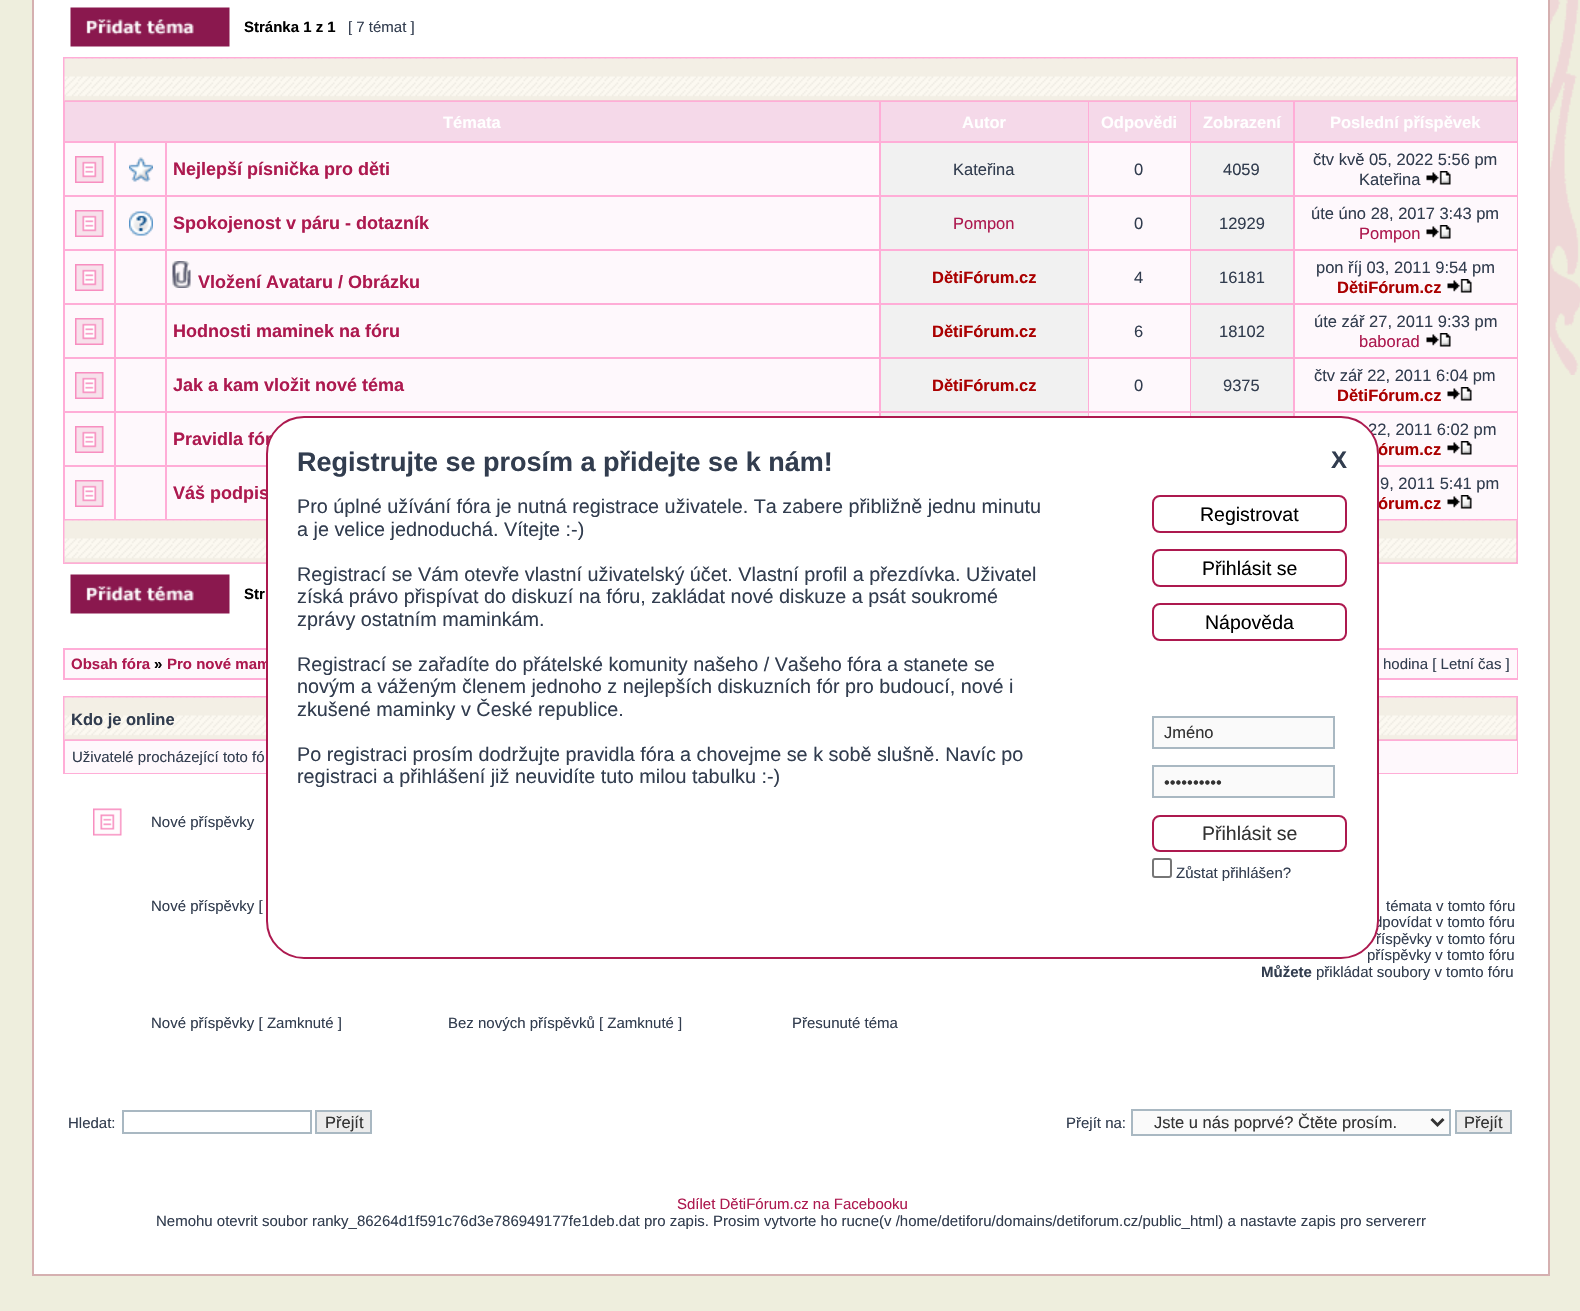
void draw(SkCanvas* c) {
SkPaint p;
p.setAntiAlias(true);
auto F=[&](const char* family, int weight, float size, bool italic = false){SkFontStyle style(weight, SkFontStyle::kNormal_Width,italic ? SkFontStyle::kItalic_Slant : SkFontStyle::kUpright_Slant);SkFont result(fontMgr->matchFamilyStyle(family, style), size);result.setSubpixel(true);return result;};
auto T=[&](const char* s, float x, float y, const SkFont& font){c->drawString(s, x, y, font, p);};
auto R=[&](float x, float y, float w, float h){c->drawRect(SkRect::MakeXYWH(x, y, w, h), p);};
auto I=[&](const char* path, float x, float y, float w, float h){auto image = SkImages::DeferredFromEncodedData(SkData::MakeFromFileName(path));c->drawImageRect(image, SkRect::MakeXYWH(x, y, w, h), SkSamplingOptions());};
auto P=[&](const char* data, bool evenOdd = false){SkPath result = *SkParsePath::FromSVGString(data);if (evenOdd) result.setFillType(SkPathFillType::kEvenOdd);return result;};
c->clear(0xffeeeedd);
I("1.png",1550,0,30,375);
p.setColor(0xffffffff);
R(34,0,1514,1274);
p.setColor(0xffd5b0b0);
R(1548,0,2,1275);
R(32,0,2,1166);
I("2.png",70,7,160,40);
auto f1 = F("Liberation Sans",700,15);
p.setColor(0xff000000);
T("Stránka 1 z 1",244,32,f1);
auto f2 = F("Liberation Sans",400,15);
p.setColor(0xff323d4f);
T("[ 7 témat ]",348,32,f2);
p.setColor(0xffffadd7);
R(63,57,1455,507);
p.setColor(0xfff88ec0);
R(65,59,1452,42);
I("3.png",64,58,1453,43);
p.setColor(0xfff5d9e9);
R(65,102,814,39);
auto f3 = F("Liberation Sans",700,16.5);
p.setColor(0xffffffff);
T("Témata",443,128,f3);
p.setColor(0xfff5d9e9);
R(881,102,207,39);
p.setColor(0xffffffff);
T("Autor",962,128,f3);
p.setColor(0xfff5d9e9);
R(1089,102,101,39);
p.setColor(0xffffffff);
T("Odpovědi",1101,128,f3);
p.setColor(0xfff5d9e9);
R(1191,102,102,39);
p.setColor(0xffffffff);
T("Zobrazení",1203,128,f3);
p.setColor(0xfff5d9e9);
R(1295,102,222,39);
p.setColor(0xffffffff);
T("Poslední příspěvek",1330,128,f3);
p.setColor(0xfffef8fc);
R(65,143,49,52);
I("4.png",75,156,29,27);
R(116,143,49,52);
I("5.png",129,157,24,25);
R(167,143,712,52);
auto f4 = F("Liberation Sans",700,18);
p.setColor(0xffad194f);
T("Nejlepší písnička pro děti",173,175,f4);
p.setColor(0xfff1f1f1);
R(881,143,207,52);
auto f5 = F("Liberation Sans",400,16.5);
p.setColor(0xff323d4f);
T("Kateřina",953,175,f5);
p.setColor(0xfffef8fc);
R(1089,143,101,52);
p.setColor(0xff323d4f);
T("0",1134,175,f5);
p.setColor(0xfff1f1f1);
R(1191,143,102,52);
p.setColor(0xff323d4f);
T("4059",1223,175,f5);
p.setColor(0xfffef8fc);
R(1295,143,222,52);
p.setColor(0xff323d4f);
T("čtv kvě 05, 2022 5:56 pm",1313,165,f5);
T("Kateřina",1359,185,f5);
I("6.png",1426,171,25,14);
p.setColor(0xfffef8fc);
R(65,197,49,52);
I("4.png",75,210,29,27);
R(116,197,49,52);
I("7.png",129,211,24,25);
R(167,197,712,52);
p.setColor(0xffad194f);
T("Spokojenost v páru - dotazník",173,229,f4);
p.setColor(0xfff1f1f1);
R(881,197,207,52);
p.setColor(0xffad194f);
T("Pompon",953,229,f5);
p.setColor(0xfffef8fc);
R(1089,197,101,52);
p.setColor(0xff323d4f);
T("0",1134,229,f5);
p.setColor(0xfff1f1f1);
R(1191,197,102,52);
p.setColor(0xff323d4f);
T("12929",1219,229,f5);
p.setColor(0xfffef8fc);
R(1295,197,222,52);
p.setColor(0xff323d4f);
T("úte úno 28, 2017 3:43 pm",1311,219,f5);
p.setColor(0xffad194f);
T("Pompon",1359,239,f5);
I("6.png",1426,225,25,14);
p.setColor(0xfffef8fc);
R(65,251,49,52);
I("4.png",75,264,29,27);
R(116,251,49,52);
R(167,251,712,52);
I("8.png",172,261,19,27);
p.setColor(0xffad194f);
T("Vložení Avataru / Obrázku",198,288,f4);
p.setColor(0xfff1f1f1);
R(881,251,207,52);
p.setColor(0xffaa0000);
T("DětiFórum.cz",932,283,f3);
p.setColor(0xfffef8fc);
R(1089,251,101,52);
p.setColor(0xff323d4f);
T("4",1134,283,f5);
p.setColor(0xfff1f1f1);
R(1191,251,102,52);
p.setColor(0xff323d4f);
T("16181",1219,283,f5);
p.setColor(0xfffef8fc);
R(1295,251,222,52);
p.setColor(0xff323d4f);
T("pon říj 03, 2011 9:54 pm",1316,273,f5);
p.setColor(0xffaa0000);
T("DětiFórum.cz",1337,293,f3);
I("6.png",1447,279,25,14);
p.setColor(0xfffef8fc);
R(65,305,49,52);
I("4.png",75,318,29,27);
R(116,305,49,52);
R(167,305,712,52);
p.setColor(0xffad194f);
T("Hodnosti maminek na fóru",173,337,f4);
p.setColor(0xfff1f1f1);
R(881,305,207,52);
p.setColor(0xffaa0000);
T("DětiFórum.cz",932,337,f3);
p.setColor(0xfffef8fc);
R(1089,305,101,52);
p.setColor(0xff323d4f);
T("6",1134,337,f5);
p.setColor(0xfff1f1f1);
R(1191,305,102,52);
p.setColor(0xff323d4f);
T("18102",1219,337,f5);
p.setColor(0xfffef8fc);
R(1295,305,222,52);
p.setColor(0xff323d4f);
T("úte zář 27, 2011 9:33 pm",1314,327,f5);
p.setColor(0xffad194f);
T("baborad",1359,347,f5);
I("6.png",1426,333,25,14);
p.setColor(0xfffef8fc);
R(65,359,49,52);
I("4.png",75,372,29,27);
R(116,359,49,52);
R(167,359,712,52);
p.setColor(0xffad194f);
T("Jak a kam vložit nové téma",173,391,f4);
p.setColor(0xfff1f1f1);
R(881,359,207,52);
p.setColor(0xffaa0000);
T("DětiFórum.cz",932,391,f3);
p.setColor(0xfffef8fc);
R(1089,359,101,52);
p.setColor(0xff323d4f);
T("0",1134,391,f5);
p.setColor(0xfff1f1f1);
R(1191,359,102,52);
p.setColor(0xff323d4f);
T("9375",1223,391,f5);
p.setColor(0xfffef8fc);
R(1295,359,222,52);
p.setColor(0xff323d4f);
T("čtv zář 22, 2011 6:04 pm",1314,381,f5);
p.setColor(0xffaa0000);
T("DětiFórum.cz",1337,401,f3);
I("6.png",1447,387,25,14);
p.setColor(0xfffef8fc);
R(65,413,49,52);
I("4.png",75,426,29,27);
R(116,413,49,52);
p.setColor(0xfff1f1f1);
R(881,413,207,3);
p.setColor(0xfffef8fc);
R(1089,413,101,3);
p.setColor(0xfff1f1f1);
R(1191,413,102,3);
p.setColor(0xfffef8fc);
R(167,413,712,52);
p.setColor(0xffad194f);
T("Pravidla fór",173,445,f4);
p.setColor(0xfffef8fc);
R(1295,413,222,52);
p.setColor(0xff323d4f);
T("22, 2011 6:02 pm",1368,435,f5);
p.setColor(0xffaa0000);
T("órum.cz",1378,455,f3);
I("6.png",1447,441,25,14);
p.setColor(0xfffef8fc);
R(65,467,49,52);
I("4.png",75,480,29,27);
R(116,467,49,52);
R(167,467,99,52);
p.setColor(0xffad194f);
T("Váš podpis",173,499,f4);
p.setColor(0xfffef8fc);
R(1379,467,138,52);
p.setColor(0xff323d4f);
T("9, 2011 5:41 pm",1380,489,f5);
p.setColor(0xffaa0000);
T("órum.cz",1378,509,f3);
I("6.png",1447,495,25,14);
p.setColor(0xfff88ec0);
R(65,521,1452,42);
I("3.png",64,520,1453,43);
I("2.png",70,574,160,40);
p.setColor(0xff000000);
T("Str",244,599,f1);
p.setColor(0xffffadd7);
R(63,648,1455,32);
p.setColor(0xfffef8fc);
R(65,650,1452,28);
p.setColor(0xffad194f);
T("Pro nové mam",167,669,f1);
p.setColor(0xffffadd7);
R(63,696,1455,78);
p.setColor(0xfff88ec0);
R(65,698,1452,42);
I("3.png",64,697,1453,43);
p.setColor(0xfffef8fc);
R(65,741,1452,32);
p.setColor(0xff323d4f);
T("dpovídat v tomto fóru",1374,927,f2);
T("říspěvky v tomto fóru",1376,944,f2);
T("příspěvky v tomto fóru",1367,960,f2);
p.setColor(0xffffffff);
c->drawRoundRect(SkRect::MakeXYWH(267,417,1111,541),37,37,p);
p.setStroke(true);
p.setStrokeWidth(2);
p.setColor(0xffad194f);
c->drawRoundRect(SkRect::MakeXYWH(267,417,1111,541),37,37,p);
auto f6 = F("Liberation Sans",700,27);
p.setStroke(false);
p.setColor(0xff323d4f);
T("Registrujte se prosím a přidejte se k nám!",297,471,f6);
auto f7 = F("Liberation Sans",700,24);
T("X",1331,468,f7);
auto f8 = F("Liberation Sans",400,19.8);
T("Pro úplné užívání fóra je nutná registrace uživatele. Ta zabere přibližně jednu minutu",297,513,f8);
T("a je velice jednoduchá. Vítejte :-)",297,536,f8);
T("Registrací se Vám otevře vlastní uživatelský účet. Vlastní profil a přezdívka. Uživatel",297,581,f8);
T("získá právo přispívat do diskuzí na fóru, zakládat nové diskuze a psát soukromé",297,603,f8);
T("zprávy ostatním maminkám.",297,626,f8);
T("Registrací se zařadíte do přátelské komunity našeho / Vašeho fóra a stanete se",297,671,f8);
T("novým a váženým členem jednoho z nejlepších diskuzních fór pro budoucí, nové i",297,693,f8);
T("zkušené maminky v České republice.",297,716,f8);
T("Po registraci prosím dodržujte pravidla fóra a chovejme se k sobě slušně. Navíc po",297,761,f8);
T("registraci a přihlášení již neuvidíte tuto milou tabulku :-)",297,783,f8);
p.setStroke(true);
p.setColor(0xffad194f);
c->drawRoundRect(SkRect::MakeXYWH(1153,496,193,36),7,7,p);
auto f9 = F("Liberation Sans",400,19.5);
p.setStroke(false);
p.setColor(0xff000000);
T("Registrovat",1200,521,f9);
p.setStroke(true);
p.setColor(0xffad194f);
c->drawRoundRect(SkRect::MakeXYWH(1153,550,193,36),7,7,p);
p.setStroke(false);
p.setColor(0xff000000);
T("Přihlásit se",1202,575,f9);
p.setStroke(true);
p.setColor(0xffad194f);
c->drawRoundRect(SkRect::MakeXYWH(1153,604,193,36),7,7,p);
p.setStroke(false);
p.setColor(0xff000000);
T("Nápověda",1205,629,f9);
p.setColor(0xfffafafa);
c->drawRect(SkRect::MakeXYWH(1153,717,181,31),p);
p.setStroke(true);
p.setColor(0xffa9b8c2);
c->drawRect(SkRect::MakeXYWH(1153,717,181,31),p);
p.setStroke(false);
p.setColor(0xff333333);
T("Jméno",1164,738,f5);
p.setColor(0xfffafafa);
c->drawRect(SkRect::MakeXYWH(1153,766,181,31),p);
p.setStroke(true);
p.setColor(0xffa9b8c2);
c->drawRect(SkRect::MakeXYWH(1153,766,181,31),p);
p.setStroke(false);
p.setColor(0xff333333);
T("••••••••••",1164,788,f5);
p.setStroke(true);
p.setColor(0xffad194f);
c->drawRoundRect(SkRect::MakeXYWH(1153,816,193,35),7,7,p);
p.setStroke(false);
p.setColor(0xff333333);
T("Přihlásit se",1202,840,f9);
p.setStroke(true);
p.setColor(0xff767676);
c->drawRoundRect(SkRect::MakeXYWH(1153,859,18,18),2,2,p);
p.setStroke(false);
p.setColor(0xff323d4f);
T("Zůstat přihlášen?",1176,878,f2);
p.setColor(0xffad194f);
T("Obsah fóra",71,669,f1);
p.setColor(0xff000000);
T("»",154,669,f1);
p.setColor(0xff323d4f);
T("hodina [ Letní čas ]",1383,669,f2);
T("Kdo je online",71,725,f3);
T("Uživatelé procházející toto fó",72,762,f2);
I("9.png",93,808,29,28);
T("Nové příspěvky",151,827,f2);
T("Nové příspěvky [",151,911,f2);
T("Nové příspěvky [ Zamknuté ]",151,1028,f2);
T("Bez nových příspěvků [ Zamknuté ]",448,1028,f2);
T("Přesunuté téma",792,1028,f2);
T("témata v tomto fóru",1386,911,f2);
T("Můžete",1261,977,f1);
T("přikládat soubory v tomto fóru",1316,977,f2);
T("Hledat:",68,1128,f2);
p.setStroke(true);
p.setColor(0xffa9b8c2);
c->drawRect(SkRect::MakeXYWH(123,1111,188,22),p);
p.setStroke(false);
p.setColor(0xffececec);
c->drawRect(SkRect::MakeXYWH(316,1111,55,22),p);
p.setStroke(true);
p.setColor(0xffa9b8c2);
c->drawRect(SkRect::MakeXYWH(316,1111,55,22),p);
p.setStroke(false);
p.setColor(0xff333333);
T("Přejít",325,1128,f5);
p.setColor(0xff323d4f);
T("Přejít na:",1066,1128,f2);
p.setColor(0xfffafafa);
c->drawRect(SkRect::MakeXYWH(1132,1110,318,25),p);
p.setStroke(true);
p.setColor(0xffa9b8c2);
c->drawRect(SkRect::MakeXYWH(1132,1110,318,25),p);
p.setStrokeWidth(3);
p.setColor(0xff333333);
c->drawPath(P("M1431.5 1119l6 6l6-6"),p);
p.setStroke(false);
T("Jste u nás poprvé? Čtěte prosím.",1154,1128,f5);
p.setColor(0xffececec);
c->drawRect(SkRect::MakeXYWH(1456,1111,55,22),p);
p.setStroke(true);
p.setStrokeWidth(2);
p.setColor(0xffa9b8c2);
c->drawRect(SkRect::MakeXYWH(1456,1111,55,22),p);
p.setStroke(false);
p.setColor(0xff333333);
T("Přejít",1464,1128,f5);
p.setColor(0xffd5b0b0);
R(32,1274,1518,2);
R(32,1166,2,109);
p.setColor(0xffad194f);
T("Sdílet DětiFórum.cz na Facebooku",677,1209,f2);
p.setColor(0xff323d4f);
T("Nemohu otevrit soubor ranky_86264d1f591c76d3e786949177fe1deb.dat pro zapis. Prosim vytvorte ho rucne(v /home/detiforu/domains/detiforum.cz/public_html) a nastavte zapis pro servererr",156,1226,f2);
}
